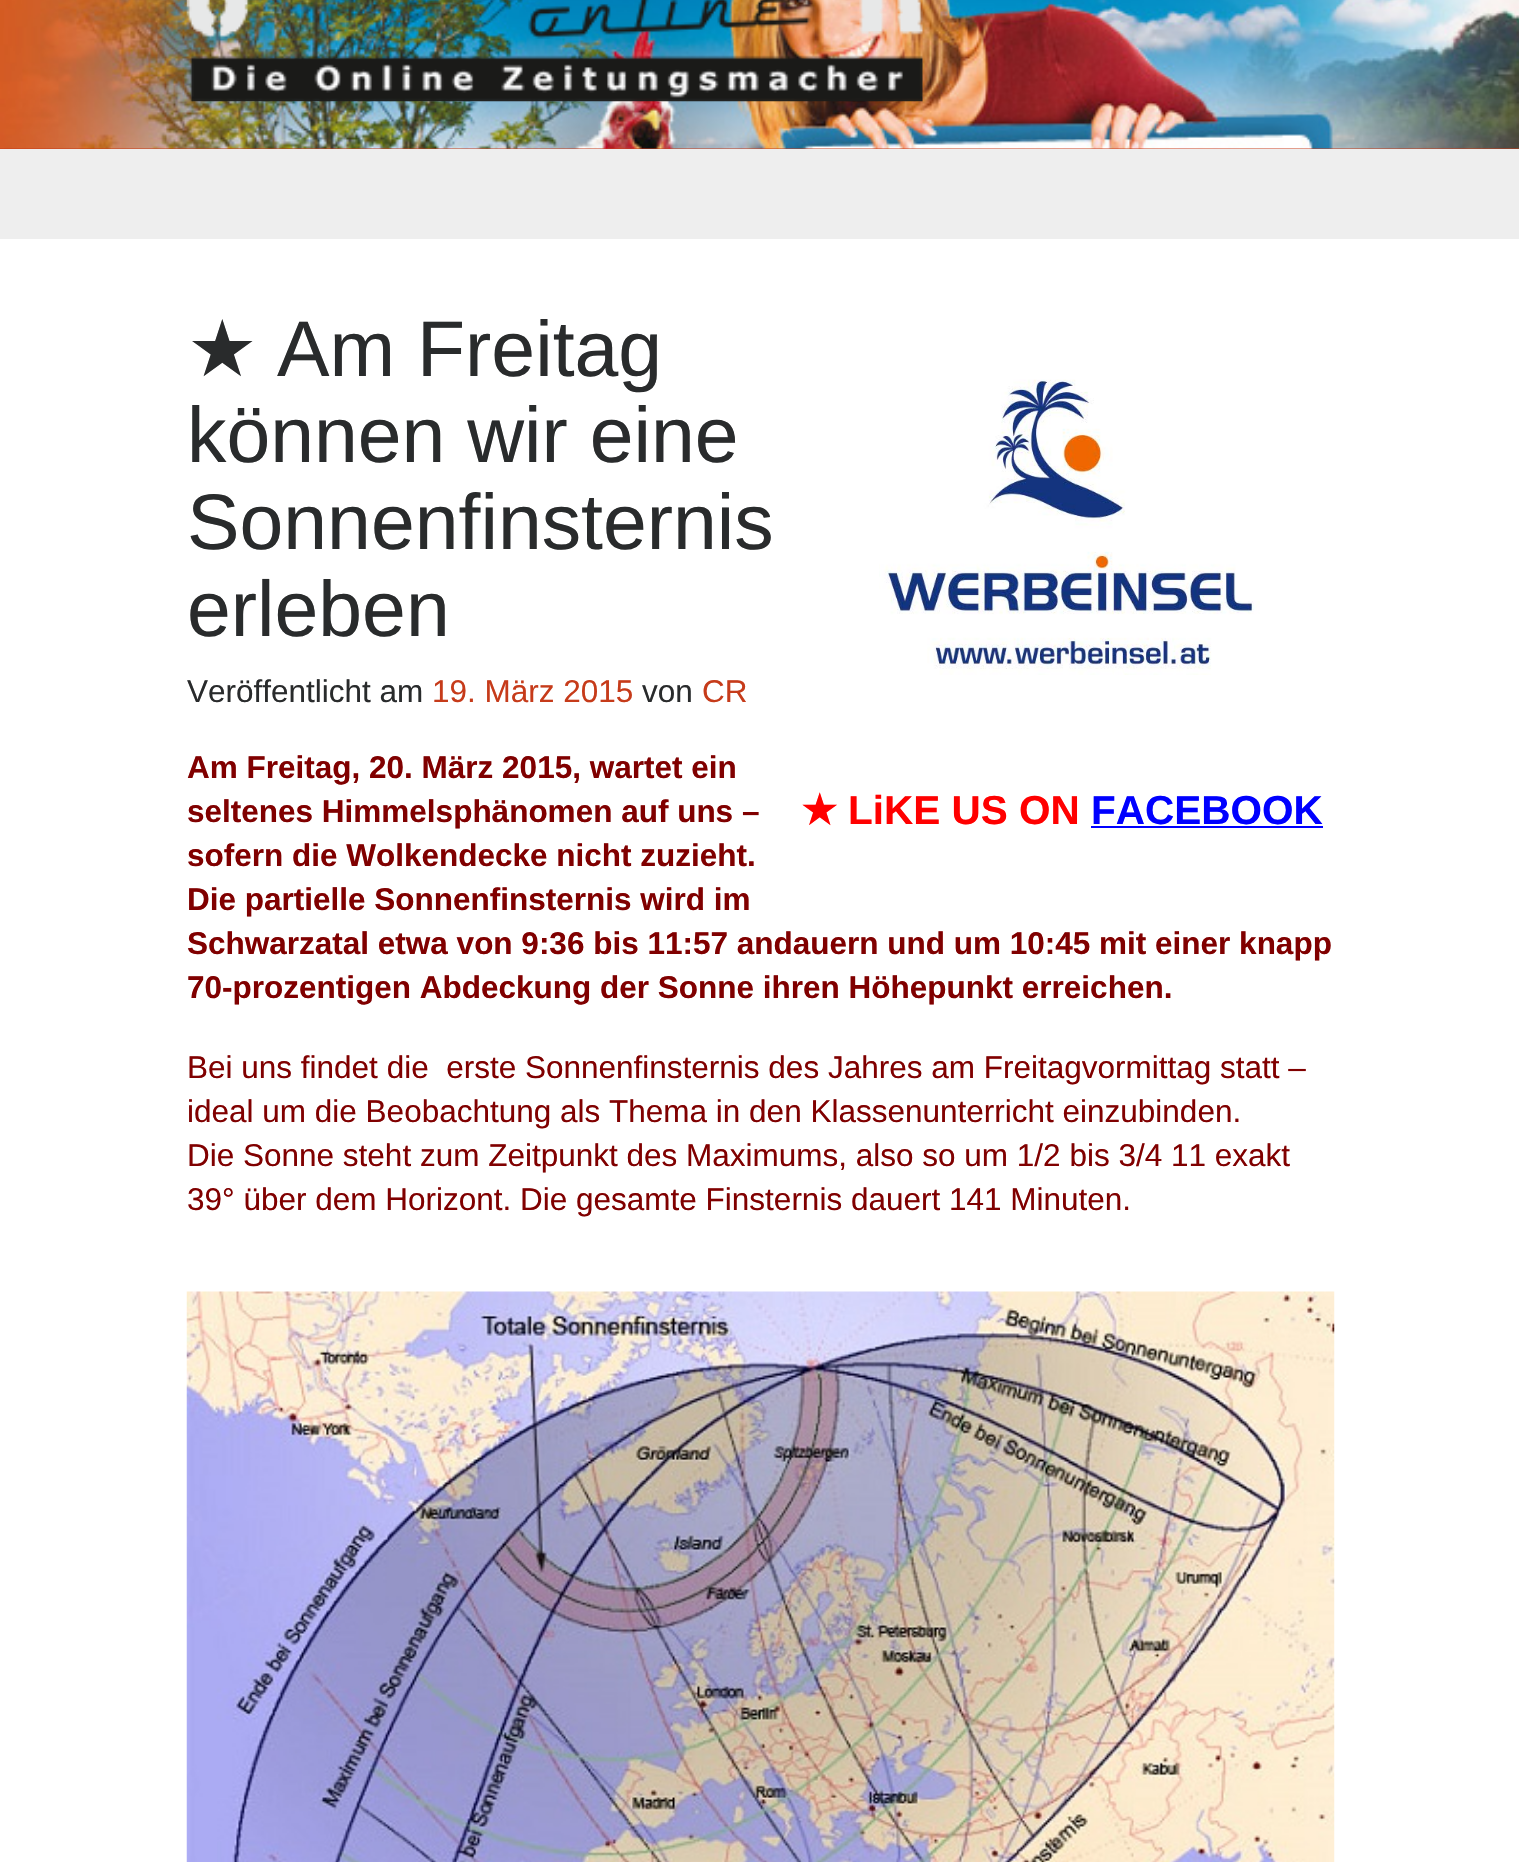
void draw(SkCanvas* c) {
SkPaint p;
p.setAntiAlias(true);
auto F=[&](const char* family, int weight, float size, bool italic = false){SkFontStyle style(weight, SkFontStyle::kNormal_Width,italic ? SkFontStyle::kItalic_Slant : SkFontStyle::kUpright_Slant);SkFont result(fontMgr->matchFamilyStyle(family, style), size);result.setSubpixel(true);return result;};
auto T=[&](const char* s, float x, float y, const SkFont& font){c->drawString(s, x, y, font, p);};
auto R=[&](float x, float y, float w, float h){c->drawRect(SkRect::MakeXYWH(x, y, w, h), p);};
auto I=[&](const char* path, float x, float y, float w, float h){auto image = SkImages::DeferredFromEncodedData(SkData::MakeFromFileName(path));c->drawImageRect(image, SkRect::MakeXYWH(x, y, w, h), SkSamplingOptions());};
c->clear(0xffffffff);
p.setColor(0xffc63b1a);
R(0,148,1519,1);
I("1.png",0,0,1519,149);
I("2.png",186,0,737,102);
p.setColor(0xffeeeeee);
R(0,149,1519,90);
auto f1 = F("DejaVu Sans",400,78.75);
p.setColor(0xff292b2c);
T("★",187,376,f1);
auto f2 = F("Liberation Sans",400,78.75);
T("Am Freitag",277,376,f2);
T("können wir eine",187,462,f2);
T("Sonnenfinsternis",187,549,f2);
T("erleben",187,636,f2);
auto f3 = F("Liberation Sans",400,31.5);
T("Veröffentlicht am",187,702,f3);
p.setColor(0xffc63b1a);
T("19. März 2015",432,702,f3);
p.setColor(0xff292b2c);
T("von",642,702,f3);
p.setColor(0xffc63b1a);
T("CR",702,702,f3);
auto f4 = F("Liberation Sans",700,31.5);
p.setColor(0xff800000);
T("Am Freitag, 20. März 2015, wartet ein",187,778,f4);
T("seltenes Himmelsphänomen auf uns –",187,822,f4);
T("sofern die Wolkendecke nicht zuzieht.",187,866,f4);
T("Die partielle Sonnenfinsternis wird im",187,910,f4);
T("Schwarzatal etwa von 9:36 bis 11:57 andauern und um 10:45 mit einer knapp",187,954,f4);
T("70-prozentigen Abdeckung der Sonne ihren Höhepunkt erreichen.",187,998,f4);
T("Bei uns findet die  erste Sonnenfinsternis des Jahres am Freitagvormittag statt –",187,1078,f3);
T("ideal um die Beobachtung als Thema in den Klassenunterricht einzubinden.",187,1122,f3);
T("Die Sonne steht zum Zeitpunkt des Maximums, also so um 1/2 bis 3/4 11 exakt",187,1166,f3);
T("39° über dem Horizont. Die gesamte Finsternis dauert 141 Minuten.",187,1210,f3);
I("3.png",186,1291,1149,571);
I("4.png",879,379,381,296);
auto f5 = F("DejaVu Sans",700,40.5);
p.setColor(0xffff0000);
T("★",801,824,f5);
auto f6 = F("Liberation Sans",700,40.5);
T("LiKE US ON",848,824,f6);
p.setColor(0xff0000ff);
T("FACEBOOK",1091,824,f6);
R(1091,826,232,2);
}
